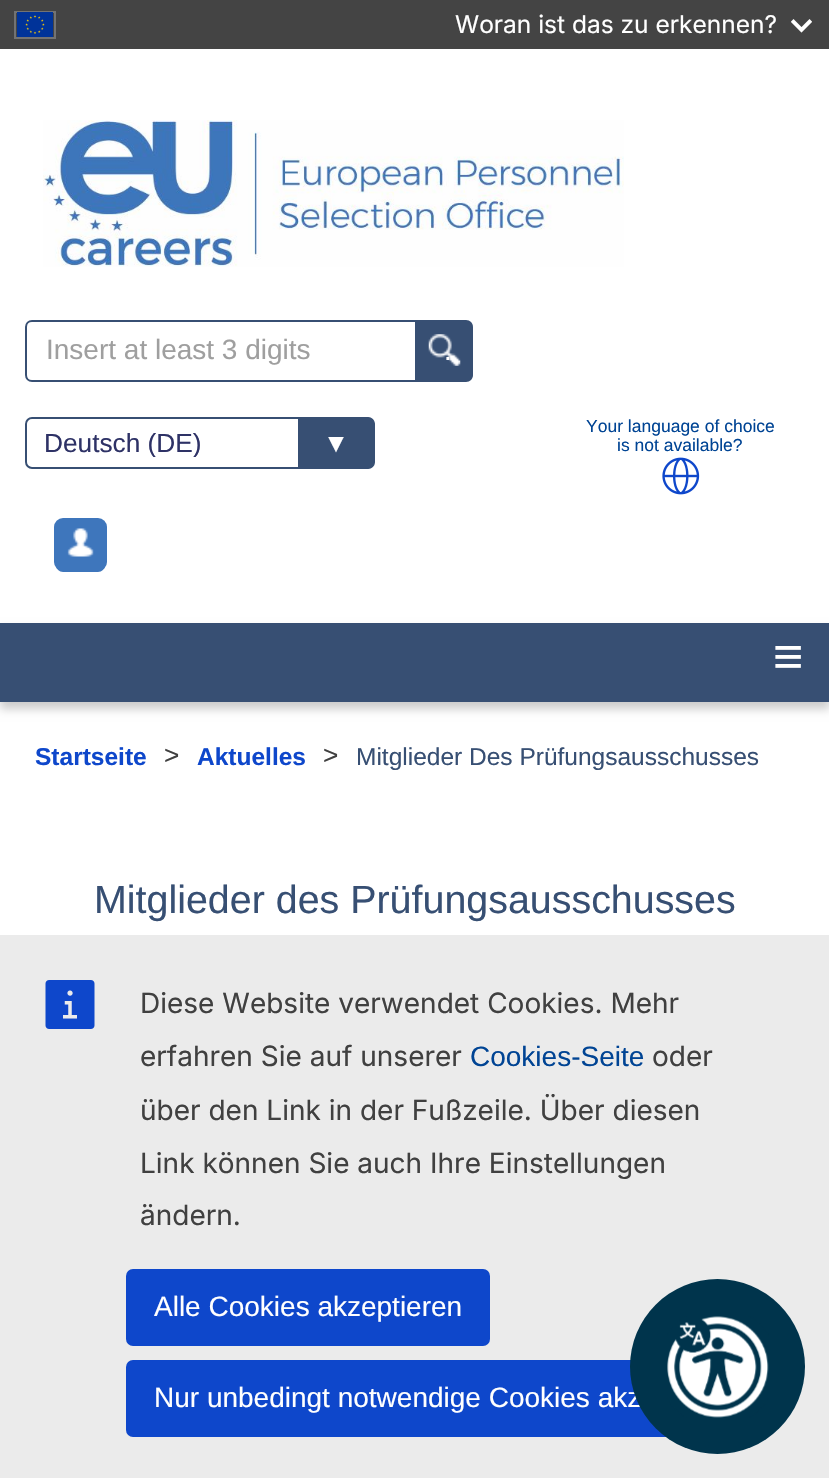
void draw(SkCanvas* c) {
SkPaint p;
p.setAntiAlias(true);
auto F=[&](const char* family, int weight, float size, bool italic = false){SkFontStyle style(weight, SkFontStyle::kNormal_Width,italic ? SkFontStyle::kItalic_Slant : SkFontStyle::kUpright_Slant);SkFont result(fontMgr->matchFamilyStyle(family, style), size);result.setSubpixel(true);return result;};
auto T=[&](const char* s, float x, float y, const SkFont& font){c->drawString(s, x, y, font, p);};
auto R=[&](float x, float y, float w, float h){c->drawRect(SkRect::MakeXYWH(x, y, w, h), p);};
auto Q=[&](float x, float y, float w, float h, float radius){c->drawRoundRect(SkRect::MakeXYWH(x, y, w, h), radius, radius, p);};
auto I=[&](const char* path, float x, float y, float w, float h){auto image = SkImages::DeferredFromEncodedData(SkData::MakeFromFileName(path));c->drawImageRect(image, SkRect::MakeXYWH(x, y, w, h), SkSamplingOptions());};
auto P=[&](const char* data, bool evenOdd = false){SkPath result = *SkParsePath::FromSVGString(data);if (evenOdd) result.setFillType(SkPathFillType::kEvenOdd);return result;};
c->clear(0xffffffff);
p.setColor(0xff444444);
R(0,0,829,49);
p.setStroke(true);
p.setStrokeWidth(2);
p.setColor(0xff737373);
c->drawRect(SkRect::MakeXYWH(15,12,40,26),p);
I("1.png",17,12,36,25);
auto f1 = F("Inter",400,24.5);
p.setStroke(false);
p.setColor(0xffffffff);
T("Woran ist das zu erkennen?",455,33,f1);
I("2.png",791,19,21,14);
I("3.png",43,120,581,147);
p.setStroke(true);
p.setColor(0xff374f73);
c->drawPath(P("M32 321h384v60h-384c-3.5 0-6-2.5-6-6v-48c0-3.5 2.5-6 6-6z"),p);
auto f2 = F("Liberation Sans",400,28);
p.setStroke(false);
p.setColor(0xff9f9f9f);
T("Insert at least 3 digits",46,359,f2);
p.setColor(0xff374f73);
c->drawPath(P("M417 320h49c4 0 7 3 7 7v48c0 4-3 7-7 7h-49z"),p);
I("4.png",428,334,33,32);
p.setColor(0xffffffff);
T(".",444,360,f2);
p.setColor(0xff374f73);
c->drawPath(P("M298 417h68c5 0 9 4 9 9v34c0 5-4 9-9 9h-68z"),p);
p.setStroke(true);
c->drawRoundRect(SkRect::MakeXYWH(26,418,348,50),6,6,p);
c->save();
c->clipRect(SkRect::MakeXYWH(44,427,311,30));
auto f3 = F("Liberation Sans",400,26.25);
p.setStroke(false);
p.setColor(0xff2e3266);
T("Deutsch (DE)",44,452,f3);
c->restore();
p.setColor(0xffffffff);
T("▼",323,452,f3);
auto f4 = F("Liberation Sans",400,17.5);
p.setColor(0xff004494);
T("Your language of choice",586,432,f4);
T("is not available?",617,451,f4);
I("5.png",662,457,38,38);
p.setColor(0xff3e76bc);
Q(54,518,53,53,9);
Q(56,546,49,26,7);
I("6.png",67,528,27,29);
p.setColor(0x33000000);
p.setMaskFilter(SkMaskFilter::MakeBlur(kNormal_SkBlurStyle, 4.5));
c->drawRect(SkRect::MakeXYWH(0,630,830,79),p);
p.setMaskFilter(nullptr);
p.setColor(0xff374f73);
R(0,623,829,79);
auto f5 = F("Liberation Sans",700,52);
p.setColor(0xffffffff);
T("≡",773,674,f5);
auto f6 = F("Liberation Sans",700,24.5);
p.setColor(0xff0e47cb);
T("Startseite",35,765,f6);
p.setColor(0xff404040);
T(">",164,764,f3);
p.setColor(0xff0e47cb);
T("Aktuelles",197,765,f6);
p.setColor(0xff404040);
T(">",323,764,f3);
auto f7 = F("Liberation Sans",400,24.5);
p.setColor(0xff374f73);
T("Mitglieder Des Prüfungsausschusses",356,765,f7);
auto f8 = F("Liberation Sans",400,39.4);
T("Mitglieder des Prüfungsausschusses",94,913,f8);
p.setColor(0xffebebeb);
R(0,935,829,543);
p.setColor(0xff0e47cb);
Q(126,1360,644,77,7);
p.setColor(0xffffffff);
T("Nur unbedingt notwendige Cookies akz",154,1407,f2);
p.setColor(0xff00344c);
c->drawCircle(717.5,1366.5,87.5,p);
I("7.png",667,1316,102,102);
I("8.png",45,980,50,49);
auto f9 = F("Inter",400,28);
p.setColor(0xff404040);
T("Diese Website verwendet Cookies. Mehr",140,1013,f9);
T("erfahren Sie auf unserer",140,1066,f9);
p.setColor(0xff004494);
T("Cookies-Seite",470,1066,f2);
p.setColor(0xff404040);
T("oder",652,1066,f9);
T("über den Link in der Fußzeile. Über diesen",140,1120,f9);
T("Link können Sie auch Ihre Einstellungen",140,1173,f9);
T("ändern.",140,1225,f9);
p.setColor(0xff0e47cb);
Q(126,1269,364,77,7);
p.setColor(0xffffffff);
T("Alle Cookies akzeptieren",154,1316,f2);
}
